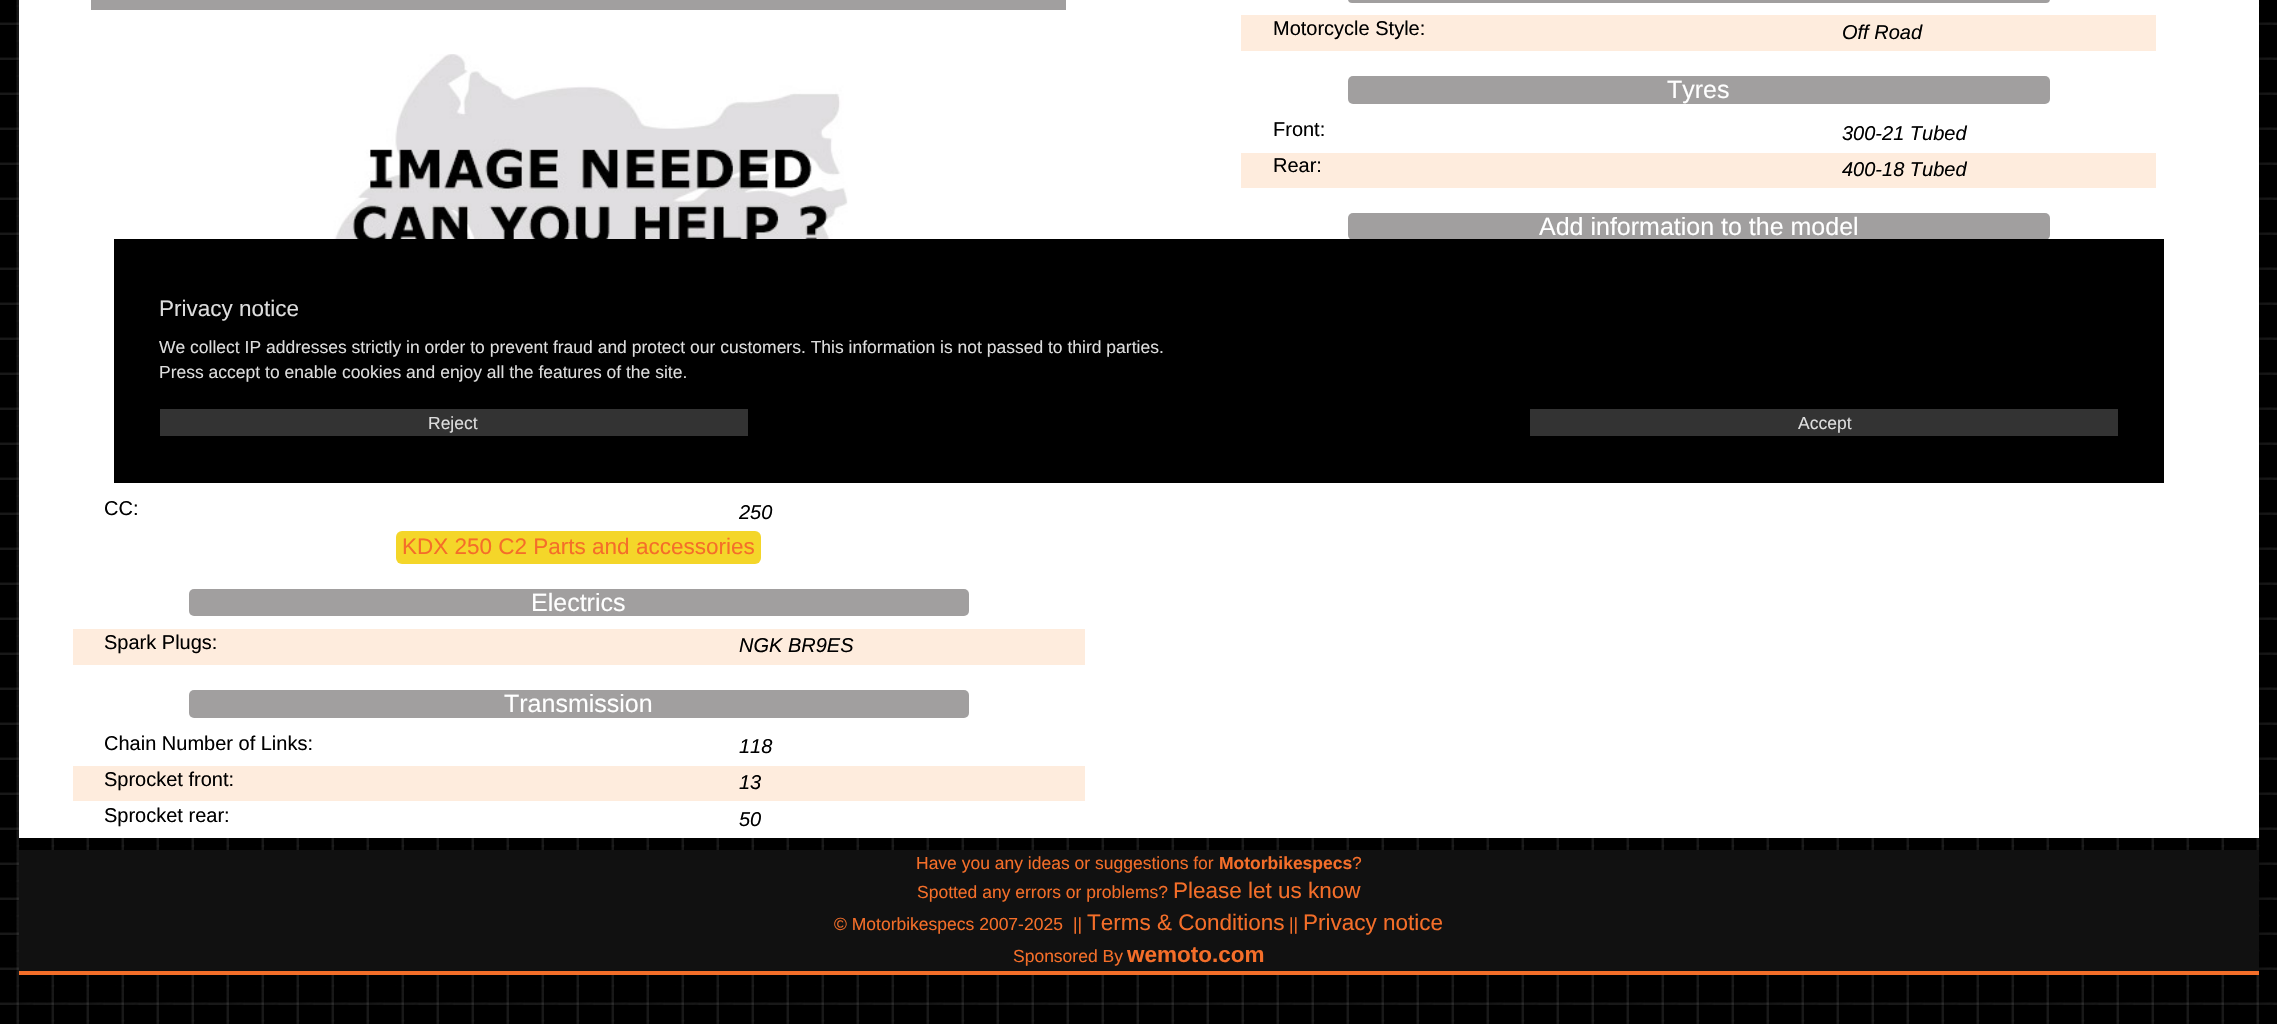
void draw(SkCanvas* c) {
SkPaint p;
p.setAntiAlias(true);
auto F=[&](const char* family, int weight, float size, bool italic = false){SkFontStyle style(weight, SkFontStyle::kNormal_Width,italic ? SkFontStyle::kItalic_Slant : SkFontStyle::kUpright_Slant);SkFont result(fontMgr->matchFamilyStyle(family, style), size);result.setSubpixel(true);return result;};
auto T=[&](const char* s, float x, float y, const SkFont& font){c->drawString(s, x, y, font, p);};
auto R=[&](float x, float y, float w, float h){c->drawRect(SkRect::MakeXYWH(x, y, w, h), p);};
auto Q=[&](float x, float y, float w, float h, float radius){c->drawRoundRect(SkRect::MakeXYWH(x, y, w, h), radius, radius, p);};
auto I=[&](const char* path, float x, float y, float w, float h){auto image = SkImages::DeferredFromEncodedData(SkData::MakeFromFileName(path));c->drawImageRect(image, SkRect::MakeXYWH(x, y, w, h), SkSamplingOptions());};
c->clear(0xffffffff);
I("1.png",0,0,2277,1024);
p.setColor(0xffffffff);
R(19,0,2240,838);
p.setColor(0xffa19f9f);
Q(1348,-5,702,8,5);
p.setColor(0xfffeecdd);
R(1241,15,915,36);
auto f1 = F("Liberation Sans",400,20);
p.setColor(0xff000000);
T("Motorcycle Style:",1273,35,f1);
auto f2 = F("Liberation Sans",400,20,true);
T("Off Road",1842,39,f2);
p.setColor(0xffa19f9f);
Q(1348,76,702,28,5);
auto f3 = F("Liberation Sans",400,25);
p.setColor(0xffffffff);
T("Tyres",1667,98,f3);
p.setColor(0xff000000);
T("Front:",1273,136,f1);
T("300-21 Tubed",1842,140,f2);
p.setColor(0xfffeecdd);
R(1241,153,915,35);
p.setColor(0xff000000);
T("Rear:",1273,172,f1);
T("400-18 Tubed",1842,176,f2);
p.setColor(0xffa19f9f);
Q(1348,213,702,27,5);
p.setColor(0xffffffff);
T("Add information to the model",1539,235,f3);
p.setColor(0xffa19f9f);
R(91,0,975,10);
I("2.png",331,54,517,185);
p.setColor(0xff000000);
T("CC:",104,515,f1);
T("250",739,519,f2);
p.setColor(0xfff4d629);
Q(396,531,365,33,6);
auto f4 = F("Liberation Sans",400,22.5);
p.setColor(0xfff46e29);
T("KDX 250 C2 Parts and accessories",402,554,f4);
p.setColor(0xffa19f9f);
Q(189,589,780,27,5);
p.setColor(0xffffffff);
T("Electrics",531,611,f3);
p.setColor(0xfffeecdd);
R(73,629,1012,36);
p.setColor(0xff000000);
T("Spark Plugs:",104,649,f1);
T("NGK BR9ES",739,652,f2);
p.setColor(0xffa19f9f);
Q(189,690,780,28,5);
p.setColor(0xffffffff);
T("Transmission",504,712,f3);
p.setColor(0xff000000);
T("Chain Number of Links:",104,750,f1);
T("118",739,753,f2);
p.setColor(0xfffeecdd);
R(73,766,1012,35);
p.setColor(0xff000000);
T("Sprocket front:",104,786,f1);
T("13",739,789,f2);
T("Sprocket rear:",104,822,f1);
T("50",739,826,f2);
R(114,239,2050,244);
p.setColor(0xffdddddd);
T("Privacy notice",159,316,f4);
auto f5 = F("Liberation Sans",400,17.5);
T("We collect IP addresses strictly in order to prevent fraud and protect our customers. This information is not passed to third parties.",159,353,f5);
T("Press accept to enable cookies and enjoy all the features of the site.",159,378,f5);
p.setColor(0xff333333);
R(160,409,588,27);
p.setColor(0xffdddddd);
T("Reject",428,429,f5);
p.setColor(0xff333333);
R(1530,409,588,27);
p.setColor(0xffdddddd);
T("Accept",1798,429,f5);
p.setColor(0xff111111);
R(19,850,2240,121);
p.setColor(0xfff46e29);
R(19,971,2240,4);
T("Have you any ideas or suggestions for",916,869,f5);
auto f6 = F("Liberation Sans",700,17.5);
T("Motorbikespecs",1219,869,f6);
T("?",1352,869,f5);
T("Spotted any errors or problems?",917,898,f5);
T("Please let us know",1173,898,f4);
T("© Motorbikespecs 2007-2025",834,930,f5);
T("||",1073,930,f5);
T("Terms & Conditions",1087,930,f4);
T("||",1289,930,f5);
T("Privacy notice",1303,930,f4);
T("Sponsored By",1013,962,f5);
auto f7 = F("Liberation Sans",700,22.5);
T("wemoto.com",1127,962,f7);
}
